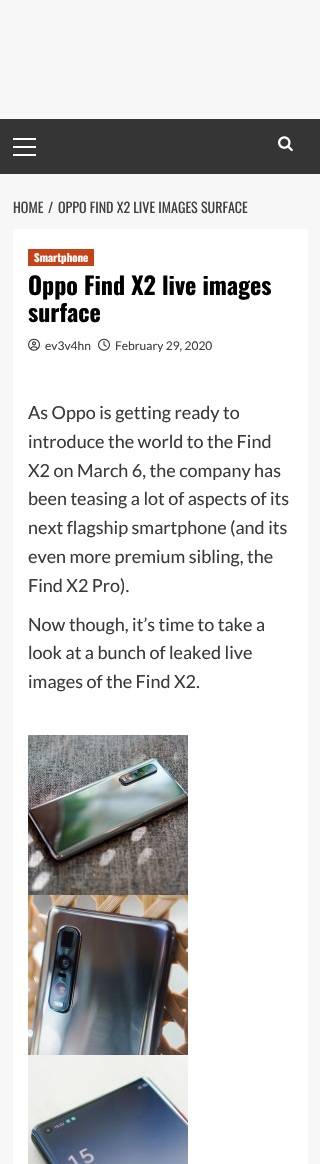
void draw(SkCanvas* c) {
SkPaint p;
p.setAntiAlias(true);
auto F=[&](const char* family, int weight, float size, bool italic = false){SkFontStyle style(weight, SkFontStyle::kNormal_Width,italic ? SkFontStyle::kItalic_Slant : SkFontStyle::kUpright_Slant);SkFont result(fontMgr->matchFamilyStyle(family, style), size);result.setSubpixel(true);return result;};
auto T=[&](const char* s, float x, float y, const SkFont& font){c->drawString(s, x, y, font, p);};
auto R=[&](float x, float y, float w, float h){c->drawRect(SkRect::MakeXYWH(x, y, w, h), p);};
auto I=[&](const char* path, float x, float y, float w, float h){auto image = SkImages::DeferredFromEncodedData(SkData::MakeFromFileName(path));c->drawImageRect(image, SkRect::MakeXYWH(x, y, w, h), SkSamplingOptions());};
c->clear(0xfff7f7f7);
p.setColor(0xff353535);
R(0,119,320,55);
p.setColor(0xffffffff);
R(13,146,23,2);
R(13,138,23,2);
R(13,154,23,2);
I("1.png",278,136,15,16);
auto f1 = F("Oswald",400,14);
p.setColor(0xff404040);
T("HOME",13,213,f1);
T("/",48,213,f1);
T("OPPO FIND X2 LIVE IMAGES SURFACE",58,213,f1);
p.setColor(0xffffffff);
R(13,229,295,935);
p.setColor(0xffc44318);
R(28,249,66,17);
auto f2 = F("Oswald",700,11);
p.setColor(0xffffffff);
T("Smartphone",34,262,f2);
auto f3 = F("Oswald",700,24);
p.setColor(0xff000000);
T("Oppo Find X2 live images",28,295,f3);
T("surface",28,322,f3);
I("2.png",28,338,12,13);
auto f4 = F("Lato",400,12);
p.setColor(0xff404040);
T("ev3v4hn",45,350,f4);
I("3.png",98,338,12,13);
T("February 29, 2020",115,350,f4);
auto f5 = F("Lato",400,18);
p.setColor(0xff3a3a3a);
T("As Oppo is getting ready to",28,419,f5);
T("introduce the world to the Find",28,448,f5);
T("X2 on March 6, the company has",28,477,f5);
T("been teasing a lot of aspects of its",28,505,f5);
T("next flagship smartphone (and its",28,534,f5);
T("even more premium sibling, the",28,563,f5);
T("Find X2 Pro).",28,592,f5);
T("Now though, it’s time to take a",28,631,f5);
T("look at a bunch of leaked live",28,659,f5);
T("images of the Find X2.",28,688,f5);
I("4.png",28,735,160,160);
I("5.png",28,895,160,160);
I("6.png",28,1055,160,109);
}
